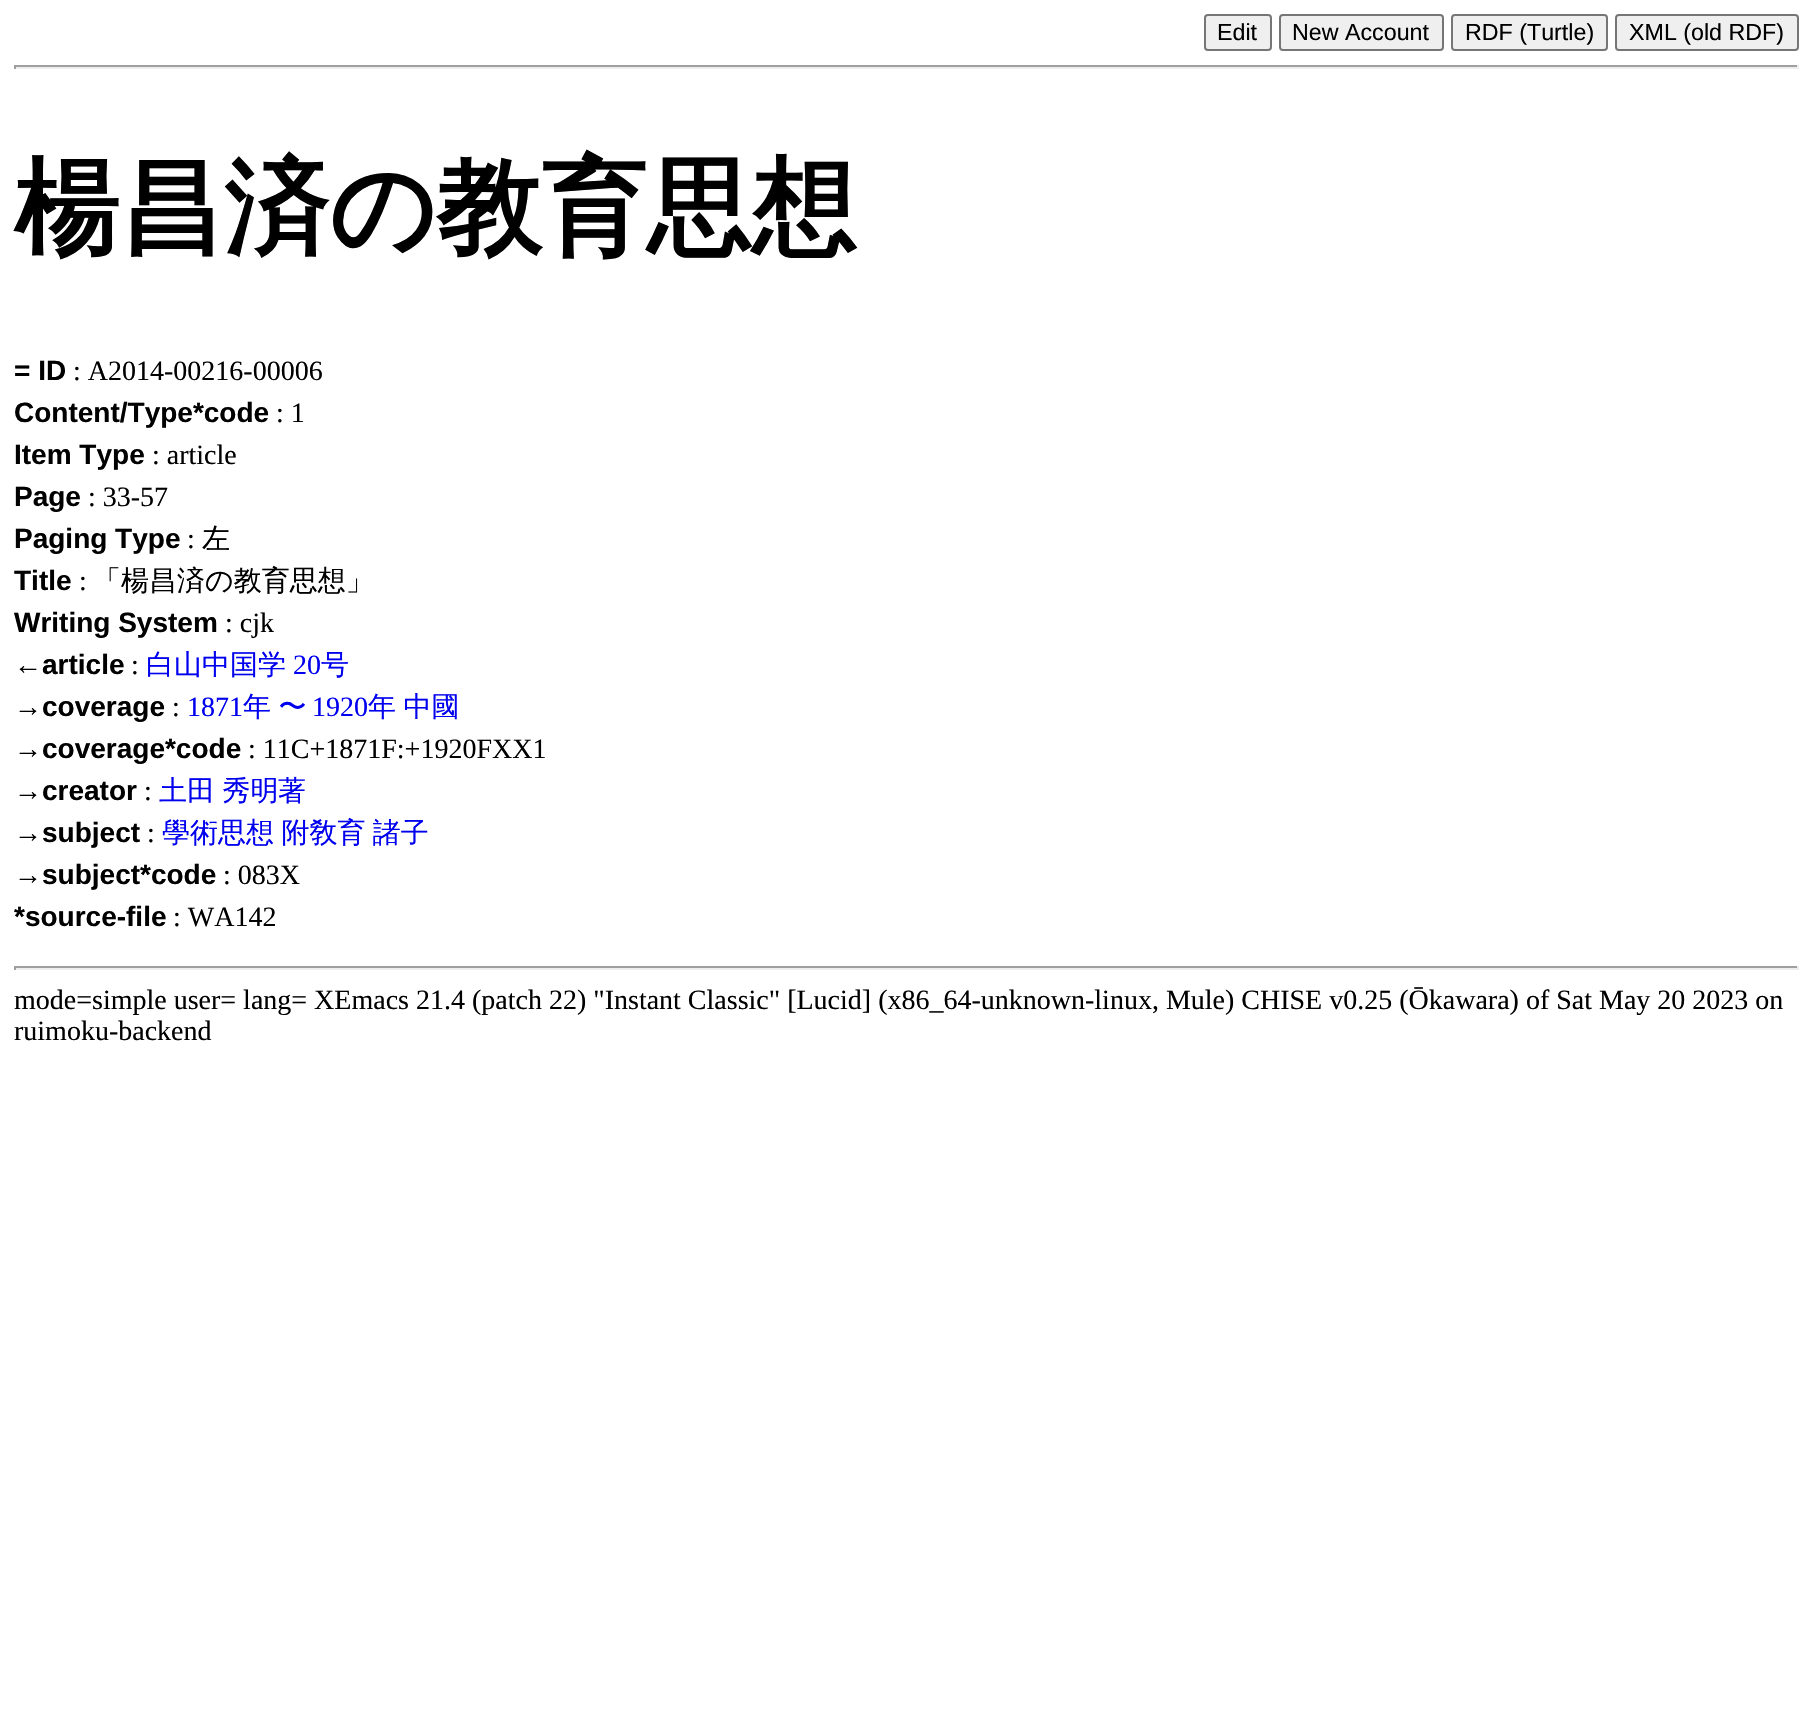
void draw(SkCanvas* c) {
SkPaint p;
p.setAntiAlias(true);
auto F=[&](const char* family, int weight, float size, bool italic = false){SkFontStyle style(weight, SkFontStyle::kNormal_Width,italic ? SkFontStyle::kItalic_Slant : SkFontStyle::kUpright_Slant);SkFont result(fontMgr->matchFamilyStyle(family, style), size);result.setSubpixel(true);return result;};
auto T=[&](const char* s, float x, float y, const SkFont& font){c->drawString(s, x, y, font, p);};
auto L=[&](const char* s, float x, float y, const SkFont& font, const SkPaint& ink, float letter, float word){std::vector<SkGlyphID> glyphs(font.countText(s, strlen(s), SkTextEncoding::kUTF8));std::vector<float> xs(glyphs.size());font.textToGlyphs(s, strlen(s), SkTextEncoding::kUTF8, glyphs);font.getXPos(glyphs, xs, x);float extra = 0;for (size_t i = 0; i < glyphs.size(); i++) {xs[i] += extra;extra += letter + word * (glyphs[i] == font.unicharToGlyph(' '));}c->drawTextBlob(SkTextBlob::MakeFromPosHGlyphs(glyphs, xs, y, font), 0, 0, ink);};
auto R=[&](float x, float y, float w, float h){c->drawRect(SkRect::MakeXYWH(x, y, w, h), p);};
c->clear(0xffffffff);
p.setColor(0xffefefef);
c->drawRoundRect(SkRect::MakeXYWH(1205,15,66,35),3,3,p);
p.setStroke(true);
p.setStrokeWidth(2);
p.setColor(0xff767676);
c->drawRoundRect(SkRect::MakeXYWH(1205,15,66,35),3,3,p);
auto f1 = F("Liberation Sans",400,23.25);
p.setStroke(false);
p.setColor(0xff000000);
T("Edit",1217,40,f1);
p.setColor(0xffefefef);
c->drawRoundRect(SkRect::MakeXYWH(1280,15,163,35),3,3,p);
p.setStroke(true);
p.setColor(0xff767676);
c->drawRoundRect(SkRect::MakeXYWH(1280,15,163,35),3,3,p);
p.setStroke(false);
p.setColor(0xff000000);
T("New Account",1292,40,f1);
p.setColor(0xffefefef);
c->drawRoundRect(SkRect::MakeXYWH(1452,15,155,35),3,3,p);
p.setStroke(true);
p.setColor(0xff767676);
c->drawRoundRect(SkRect::MakeXYWH(1452,15,155,35),3,3,p);
p.setStroke(false);
p.setColor(0xff000000);
T("RDF (Turtle)",1465,40,f1);
p.setColor(0xffefefef);
c->drawRoundRect(SkRect::MakeXYWH(1616,15,182,35),3,3,p);
p.setStroke(true);
p.setColor(0xff767676);
c->drawRoundRect(SkRect::MakeXYWH(1616,15,182,35),3,3,p);
p.setStroke(false);
p.setColor(0xff000000);
T("XML (old RDF)",1629,40,f1);
p.setColor(0xff9f9f9f);
R(14,65,1785,2);
p.setColor(0xffeeeeee);
R(1797,65,2,4);
R(14,67,1785,2);
p.setColor(0xff9f9f9f);
R(14,65,2,4);
auto f2 = F("WenQuanYi Zen Hei",700,105);
p.setColor(0xff000000);
T("楊昌済の教育思想",14,244,f2);
auto f3 = F("Liberation Sans",700,28);
T("= ID",14,380,f3);
auto f4 = F("Liberation Serif",400,28);
T(": A2014-00216-00006",73,380,f4);
T("Content/Type*code",14,422,f3);
T(": 1",276,422,f4);
T("Item Type",14,464,f3);
T(": article",152,464,f4);
T("Page",14,506,f3);
T(": 33-57",88,506,f4);
T("Paging Type",14,548,f3);
T(":",187,548,f4);
auto f5 = F("WenQuanYi Zen Hei",500,28);
T("左",202,548,f5);
T("Title",14,590,f3);
T(":",79,590,f4);
T("「楊昌済の教育思想」",93,590,f5);
T("Writing System",14,632,f3);
T(": cjk",225,632,f4);
T("←article",14,674,f3);
T(":",131,674,f4);
p.setColor(0xff0000ee);
T("白山中国学",146,674,f5);
T("20",293,674,f4);
T("号",321,674,f5);
p.setColor(0xff000000);
T("→coverage",14,716,f3);
T(":",172,716,f4);
p.setColor(0xff0000ee);
T("1871",187,716,f4);
L("年 〜",243,716,f5,p,0,-1);
T("1920",312,716,f4);
L("年 中國",368,716,f5,p,0,-1);
p.setColor(0xff000000);
T("→coverage*code",14,758,f3);
T(": 11C+1871F:+1920FXX1",248,758,f4);
T("→creator",14,800,f3);
T(":",144,800,f4);
p.setColor(0xff0000ee);
L("土田 秀明",159,800,f5,p,0,-1);
T("著",278,800,f5);
p.setColor(0xff000000);
T("→subject",14,842,f3);
T(":",147,842,f4);
p.setColor(0xff0000ee);
L("學術思想 附敎育 諸子",162,842,f5,p,0,-1);
p.setColor(0xff000000);
T("→subject*code",14,884,f3);
T(": 083X",223,884,f4);
T("*source-file",14,926,f3);
T(": WA142",173,926,f4);
p.setColor(0xff9f9f9f);
R(14,966,1785,2);
p.setColor(0xffeeeeee);
R(1797,966,2,4);
R(14,968,1785,2);
p.setColor(0xff9f9f9f);
R(14,966,2,4);
p.setColor(0xff000000);
T("mode=simple user= lang= XEmacs 21.4 (patch 22) \"Instant Classic\" [Lucid] (x86_64-unknown-linux, Mule) CHISE v0.25 (Ōkawara) of Sat May 20 2023 on",14,1009,f4);
T("ruimoku-backend",14,1040,f4);
}
